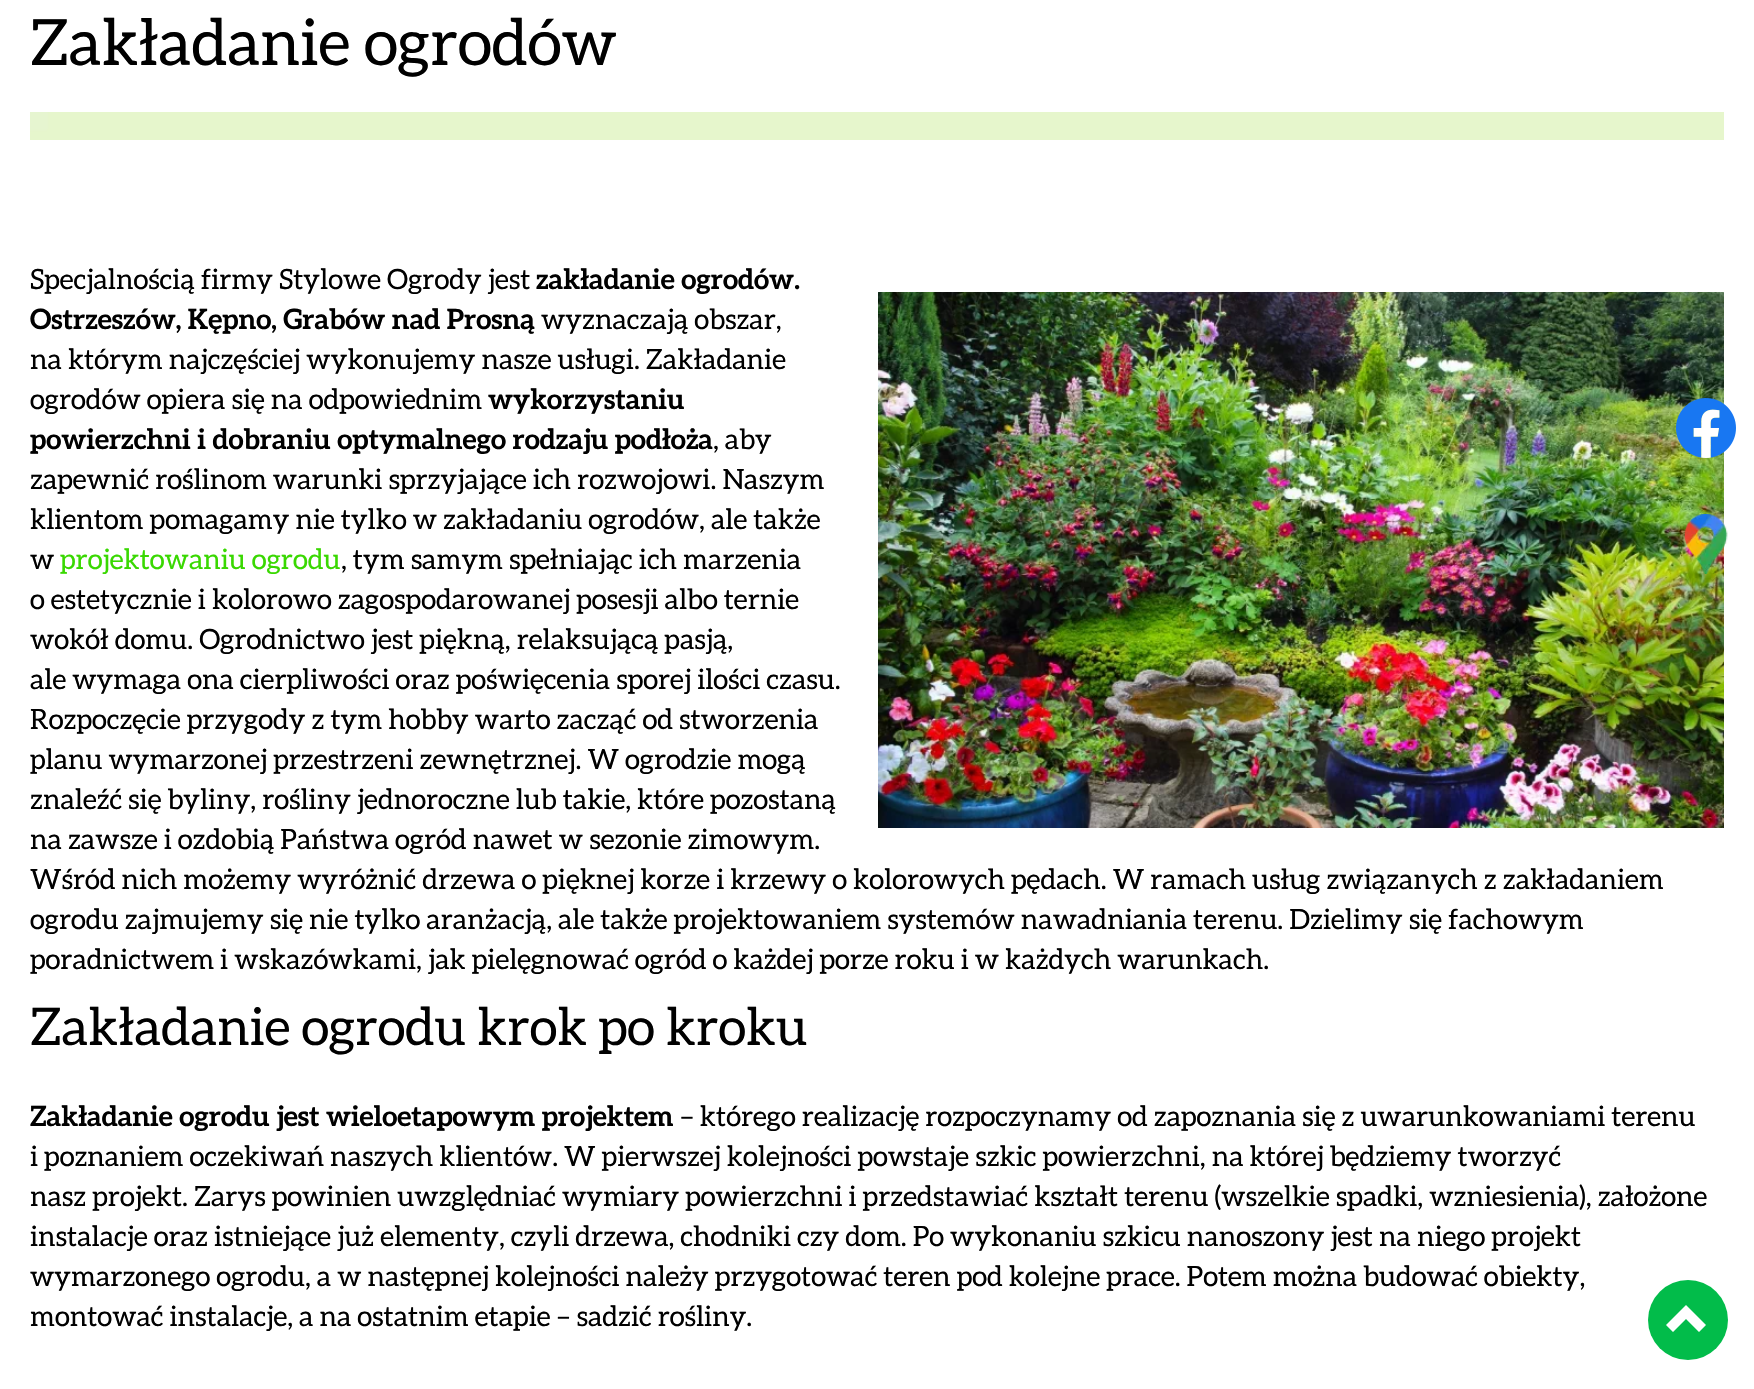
void draw(SkCanvas* c) {
SkPaint p;
p.setAntiAlias(true);
auto F=[&](const char* family, int weight, float size, bool italic = false){SkFontStyle style(weight, SkFontStyle::kNormal_Width,italic ? SkFontStyle::kItalic_Slant : SkFontStyle::kUpright_Slant);SkFont result(fontMgr->matchFamilyStyle(family, style), size);result.setSubpixel(true);return result;};
auto T=[&](const char* s, float x, float y, const SkFont& font){c->drawString(s, x, y, font, p);};
auto I=[&](const char* path, float x, float y, float w, float h){auto image = SkImages::DeferredFromEncodedData(SkData::MakeFromFileName(path));c->drawImageRect(image, SkRect::MakeXYWH(x, y, w, h), SkSamplingOptions());};
auto P=[&](const char* data, bool evenOdd = false){SkPath result = *SkParsePath::FromSVGString(data);if (evenOdd) result.setFillType(SkPathFillType::kEvenOdd);return result;};
c->clear(0xffffffff);
auto f1 = F("Aleo",400,64);
p.setColor(0xff000000);
T("Zakładanie ogrodów",30,65,f1);
I("1.png",30,112,1694,28);
auto f2 = F("Aleo",400,28);
T("Specjalnością firmy Stylowe Ogrody jest",30,289,f2);
auto f3 = F("Aleo",700,28);
T("zakładanie ogrodów.",536,289,f3);
T("Ostrzeszów, Kępno, Grabów nad Prosną",30,329,f3);
T("wyznaczają obszar,",541,329,f2);
T("na którym najczęściej wykonujemy nasze usługi. Zakładanie",30,369,f2);
T("ogrodów opiera się na odpowiednim",30,409,f2);
T("wykorzystaniu",488,409,f3);
T("powierzchni i dobraniu optymalnego rodzaju podłoża",30,449,f3);
T(", aby",713,449,f2);
T("zapewnić roślinom warunki sprzyjające ich rozwojowi. Naszym",30,489,f2);
T("klientom pomagamy nie tylko w zakładaniu ogrodów, ale także",30,529,f2);
T("w",30,569,f2);
p.setColor(0xff39d801);
T("projektowaniu ogrodu",60,569,f2);
p.setColor(0xff000000);
T(", tym samym spełniając ich marzenia",341,569,f2);
T("o estetycznie i kolorowo zagospodarowanej posesji albo ternie",30,609,f2);
T("wokół domu. Ogrodnictwo jest piękną, relaksującą pasją,",30,649,f2);
T("ale wymaga ona cierpliwości oraz poświęcenia sporej ilości czasu.",30,689,f2);
T("Rozpoczęcie przygody z tym hobby warto zacząć od stworzenia",30,729,f2);
T("planu wymarzonej przestrzeni zewnętrznej. W ogrodzie mogą",30,769,f2);
T("znaleźć się byliny, rośliny jednoroczne lub takie, które pozostaną",30,809,f2);
T("na zawsze i ozdobią Państwa ogród nawet w sezonie zimowym.",30,849,f2);
T("Wśród nich możemy wyróżnić drzewa o pięknej korze i krzewy o kolorowych pędach. W ramach usług związanych z zakładaniem",30,889,f2);
T("ogrodu zajmujemy się nie tylko aranżacją, ale także projektowaniem systemów nawadniania terenu. Dzielimy się fachowym",30,929,f2);
T("poradnictwem i wskazówkami, jak pielęgnować ogród o każdej porze roku i w każdych warunkach.",30,969,f2);
I("2.png",878,292,846,536);
auto f4 = F("Aleo",400,52);
T("Zakładanie ogrodu krok po kroku",30,1045,f4);
T("Zakładanie ogrodu jest wieloetapowym projektem",30,1126,f3);
T("– którego realizację rozpoczynamy od zapoznania się z uwarunkowaniami terenu",680,1126,f2);
T("i poznaniem oczekiwań naszych klientów. W pierwszej kolejności powstaje szkic powierzchni, na której będziemy tworzyć",30,1166,f2);
T("nasz projekt. Zarys powinien uwzględniać wymiary powierzchni i przedstawiać kształt terenu (wszelkie spadki, wzniesienia), założone",30,1206,f2);
T("instalacje oraz istniejące już elementy, czyli drzewa, chodniki czy dom. Po wykonaniu szkicu nanoszony jest na niego projekt",30,1246,f2);
T("wymarzonego ogrodu, a w następnej kolejności należy przygotować teren pod kolejne prace. Potem można budować obiekty,",30,1286,f2);
T("montować instalacje, a na ostatnim etapie – sadzić rośliny.",30,1326,f2);
I("3.png",1676,398,60,60);
I("4.png",1684,514,44,60);
p.setColor(0xff02bc4a);
c->drawCircle(1688,1320,40,p);
p.setColor(0xffffffff);
c->drawPath(P("M1706 1325l-7 7l-13-13l-13 13l-7-7l20-20z"),p);
}
